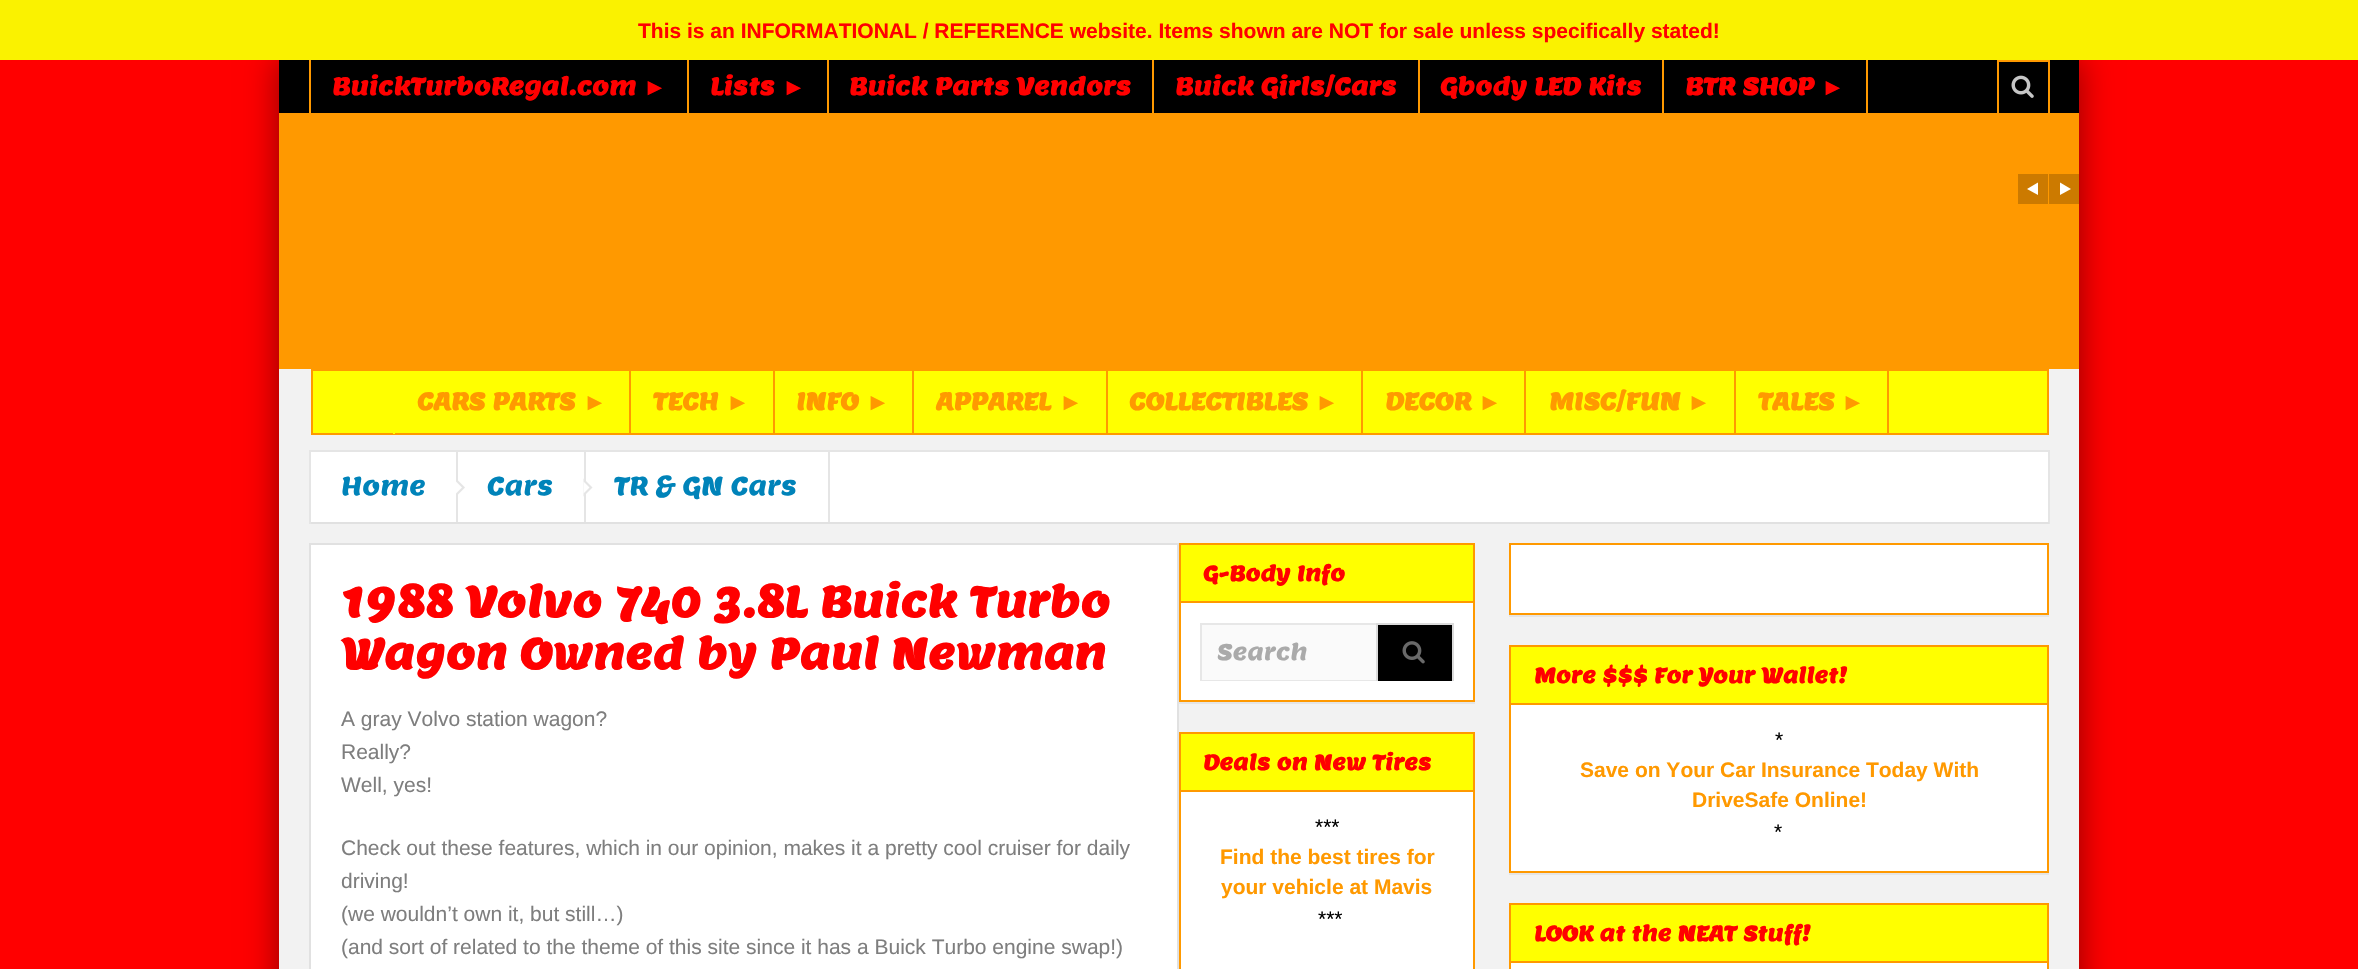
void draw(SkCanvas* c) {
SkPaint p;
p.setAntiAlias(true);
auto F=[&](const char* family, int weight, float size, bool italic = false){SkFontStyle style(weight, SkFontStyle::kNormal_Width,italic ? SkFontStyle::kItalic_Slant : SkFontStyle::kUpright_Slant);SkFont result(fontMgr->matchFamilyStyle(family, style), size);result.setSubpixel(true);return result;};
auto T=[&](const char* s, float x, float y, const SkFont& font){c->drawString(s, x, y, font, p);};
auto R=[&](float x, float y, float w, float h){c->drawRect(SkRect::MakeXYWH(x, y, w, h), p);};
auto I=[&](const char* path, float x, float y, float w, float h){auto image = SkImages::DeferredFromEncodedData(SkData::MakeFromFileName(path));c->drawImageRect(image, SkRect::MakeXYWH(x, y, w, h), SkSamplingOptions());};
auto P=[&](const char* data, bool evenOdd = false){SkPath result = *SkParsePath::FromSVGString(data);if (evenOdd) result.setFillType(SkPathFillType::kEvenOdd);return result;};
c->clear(0xffff0000);
p.setColor(0x70000000);
p.setMaskFilter(SkMaskFilter::MakeBlur(kNormal_SkBlurStyle, 16));
c->drawRect(SkRect::MakeXYWH(279,60,1800,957),p);
p.setMaskFilter(nullptr);
p.setColor(0xfffaf200);
R(0,0,2358,60);
auto f1 = F("Liberation Sans",700,21);
p.setColor(0xffff0000);
T("This is an INFORMATIONAL / REFERENCE website. Items shown are NOT for sale unless specifically stated!",638,38,f1);
p.setColor(0xfff2f2f2);
R(279,369,1800,600);
p.setColor(0xff000000);
R(279,60,1800,53);
p.setColor(0xffff9900);
R(279,113,1800,256);
R(687,60,2,53);
R(309,60,2,53);
auto f2 = F("Lemon",700,24);
p.setColor(0xffff0000);
T("BuickTurboRegal.com",332,95,f2);
auto f3 = F("Liberation Serif",700,24);
T("►",643,95,f3);
p.setColor(0xffff9900);
R(827,60,2,53);
p.setColor(0xffff0000);
T("Lists",710,95,f2);
T("►",782,95,f3);
p.setColor(0xffff9900);
R(1152,60,2,53);
p.setColor(0xffff0000);
T("Buick Parts Vendors",849,95,f2);
p.setColor(0xffff9900);
R(1418,60,2,53);
p.setColor(0xffff0000);
T("Buick Girls/Cars",1175,95,f2);
p.setColor(0xffff9900);
R(1662,60,2,53);
p.setColor(0xffff0000);
T("Gbody LED Kits",1440,95,f2);
p.setColor(0xffff9900);
R(1866,60,2,53);
p.setColor(0xffff0000);
T("BTR SHOP",1685,95,f2);
T("►",1821,95,f3);
p.setColor(0xffff9900);
R(1997,60,52,2);
R(2048,60,2,53);
R(1997,60,2,53);
I("1.png",2011,75,23,23);
p.setColor(0xffcc7a00);
R(2018,174,30,30);
p.setColor(0xffffffff);
c->drawPath(P("M2038 182.5v12.5l-11-6z"),p);
p.setColor(0xffcc7a00);
R(2049,174,30,30);
p.setColor(0xffffffff);
c->drawPath(P("M2060 182.5v12.5l11-6z"),p);
p.setColor(0xffffff00);
c->drawRect(SkRect::MakeXYWH(312,370,1736,64),p);
p.setStroke(true);
p.setStrokeWidth(2);
p.setColor(0xffff9900);
c->drawRect(SkRect::MakeXYWH(312,370,1736,64),p);
p.setStroke(false);
R(629,371,2,63);
T("CARS PARTS",417,410,f2);
T("►",583,410,f3);
R(773,371,2,63);
T("TECH",653,410,f2);
T("►",726,410,f3);
R(912,371,2,63);
T("INFO",796,410,f2);
T("►",866,410,f3);
R(1106,371,2,63);
T("APPAREL",936,410,f2);
T("►",1059,410,f3);
R(1361,371,2,63);
T("COLLECTIBLES",1129,410,f2);
T("►",1315,410,f3);
R(1524,371,2,63);
T("DECOR",1385,410,f2);
T("►",1478,410,f3);
R(1734,371,2,63);
T("MISC/FUN",1549,410,f2);
T("►",1687,410,f3);
R(1887,371,2,63);
T("TALES",1758,410,f2);
T("►",1841,410,f3);
p.setColor(0xffffff00);
R(393,433,2,1);
p.setColor(0xffffffff);
R(311,452,1737,70);
p.setColor(0xffe5e5e5);
R(309,450,1740,2);
R(2048,450,2,74);
p.setColor(0xffe1e1e1);
R(309,522,1740,2);
p.setColor(0xffe5e5e5);
R(309,450,2,74);
R(456,452,2,70);
auto f4 = F("Lemon",400,25.5);
p.setColor(0xff0083b9);
T("Home",341,495,f4);
p.setColor(0xffe5e5e5);
c->drawPath(P("M456 496.5v-18l9 9z"),p);
p.setColor(0xffffffff);
c->drawPath(P("M456 493.5v-12l6 6z"),p);
p.setColor(0xffe5e5e5);
R(584,452,2,70);
p.setColor(0xff0083b9);
T("Cars",487,495,f4);
p.setColor(0xffe5e5e5);
c->drawPath(P("M583.5 496.5v-18l9 9z"),p);
p.setColor(0xffffffff);
c->drawPath(P("M583.5 493.5v-12l6 6z"),p);
p.setColor(0xffe5e5e5);
R(828,452,2,70);
p.setColor(0xff0083b9);
T("TR & GN Cars",614,495,f4);
p.setColor(0xffffffff);
c->drawRect(SkRect::MakeXYWH(310,544,868,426),p);
p.setStroke(true);
p.setColor(0xffe1e1e1);
c->drawRect(SkRect::MakeXYWH(310,544,868,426),p);
auto f5 = F("Lemon",700,42);
p.setStroke(false);
p.setColor(0xffff0000);
T("1988 Volvo 740 3.8L Buick Turbo",341,617,f5);
T("Wagon Owned by Paul Newman",341,669,f5);
auto f6 = F("Liberation Sans",400,21);
p.setColor(0xff7e7e7e);
T("A gray Volvo station wagon?",341,726,f6);
T("Really?",341,759,f6);
T("Well, yes!",341,792,f6);
T("Check out these features, which in our opinion, makes it a pretty cool cruiser for daily",341,855,f6);
T("driving!",341,888,f6);
T("(we wouldn’t own it, but still…)",341,921,f6);
T("(and sort of related to the theme of this site since it has a Buick Turbo engine swap!)",341,954,f6);
p.setColor(0xffe5e5e5);
c->drawPath(P("M1179 702v2h296v-159h-1v157z"),p);
p.setColor(0xffffffff);
R(1181,603,292,97);
p.setStroke(true);
p.setColor(0xffff9900);
c->drawRect(SkRect::MakeXYWH(1180,544,294,157),p);
p.setStroke(false);
p.setColor(0xffffff00);
c->drawRect(SkRect::MakeXYWH(1180,544,294,58),p);
p.setStroke(true);
p.setColor(0xffff9900);
c->drawRect(SkRect::MakeXYWH(1180,544,294,58),p);
auto f7 = F("Lemon",700,21);
p.setStroke(false);
p.setColor(0xffff0000);
T("G-Body Info",1203,581,f7);
p.setColor(0xfffafafa);
R(1202,625,174,55);
p.setColor(0xffe7e7e7);
R(1200,623,176,2);
R(1200,680,176,1);
R(1200,623,2,58);
auto f8 = F("Lemon",400,22.5);
p.setColor(0xffaaaaaa);
T("Search",1217,660,f8);
p.setColor(0xff000000);
R(1378,625,74,56);
c->save();
c->clipRect(SkRect::MakeXYWH(1200,623,254,58));
p.setStroke(true);
p.setColor(0xffdbdbdb);
c->drawRect(SkRect::MakeXYWH(1377,624,76,62),p);
c->restore();
I("2.png",1402,641,23,23);
p.setStroke(false);
p.setColor(0xffffffff);
R(1181,792,292,177);
p.setStroke(true);
p.setColor(0xffff9900);
c->drawRect(SkRect::MakeXYWH(1180,733,294,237),p);
p.setStroke(false);
p.setColor(0xffffff00);
c->drawRect(SkRect::MakeXYWH(1180,733,294,58),p);
p.setStroke(true);
p.setColor(0xffff9900);
c->drawRect(SkRect::MakeXYWH(1180,733,294,58),p);
p.setStroke(false);
p.setColor(0xffff0000);
T("Deals on New Tires",1203,770,f7);
p.setColor(0xff000000);
T("***",1315,834,f6);
p.setColor(0xffff9900);
T("Find the best tires for",1220,864,f1);
T("your vehicle at Mavis",1221,894,f1);
p.setColor(0xff000000);
T("***",1318,926,f6);
p.setColor(0xffe5e5e5);
R(1509,615,540,2);
p.setColor(0xffffffff);
c->drawRect(SkRect::MakeXYWH(1510,544,538,70),p);
p.setStroke(true);
p.setColor(0xffff9900);
c->drawRect(SkRect::MakeXYWH(1510,544,538,70),p);
p.setStroke(false);
p.setColor(0xffe5e5e5);
R(1509,873,540,2);
p.setColor(0xffffffff);
R(1511,705,536,166);
p.setStroke(true);
p.setColor(0xffff9900);
c->drawRect(SkRect::MakeXYWH(1510,646,538,226),p);
p.setStroke(false);
p.setColor(0xffffff00);
c->drawRect(SkRect::MakeXYWH(1510,646,538,58),p);
p.setStroke(true);
p.setColor(0xffff9900);
c->drawRect(SkRect::MakeXYWH(1510,646,538,58),p);
p.setStroke(false);
p.setColor(0xffff0000);
T("More $$$ For Your Wallet!",1534,683,f7);
p.setColor(0xff000000);
T("*",1775,747,f6);
p.setColor(0xffff9900);
T("Save on Your Car Insurance Today With",1580,777,f1);
T("DriveSafe Online!",1692,807,f1);
p.setColor(0xff000000);
T("*",1774,839,f6);
p.setColor(0xffffffff);
R(1511,963,536,6);
p.setStroke(true);
p.setColor(0xffff9900);
c->drawRect(SkRect::MakeXYWH(1510,904,538,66),p);
p.setStroke(false);
p.setColor(0xffffff00);
c->drawRect(SkRect::MakeXYWH(1510,904,538,58),p);
p.setStroke(true);
p.setColor(0xffff9900);
c->drawRect(SkRect::MakeXYWH(1510,904,538,58),p);
p.setStroke(false);
p.setColor(0xffff0000);
T("LOOK at the NEAT Stuff!",1534,941,f7);
}
